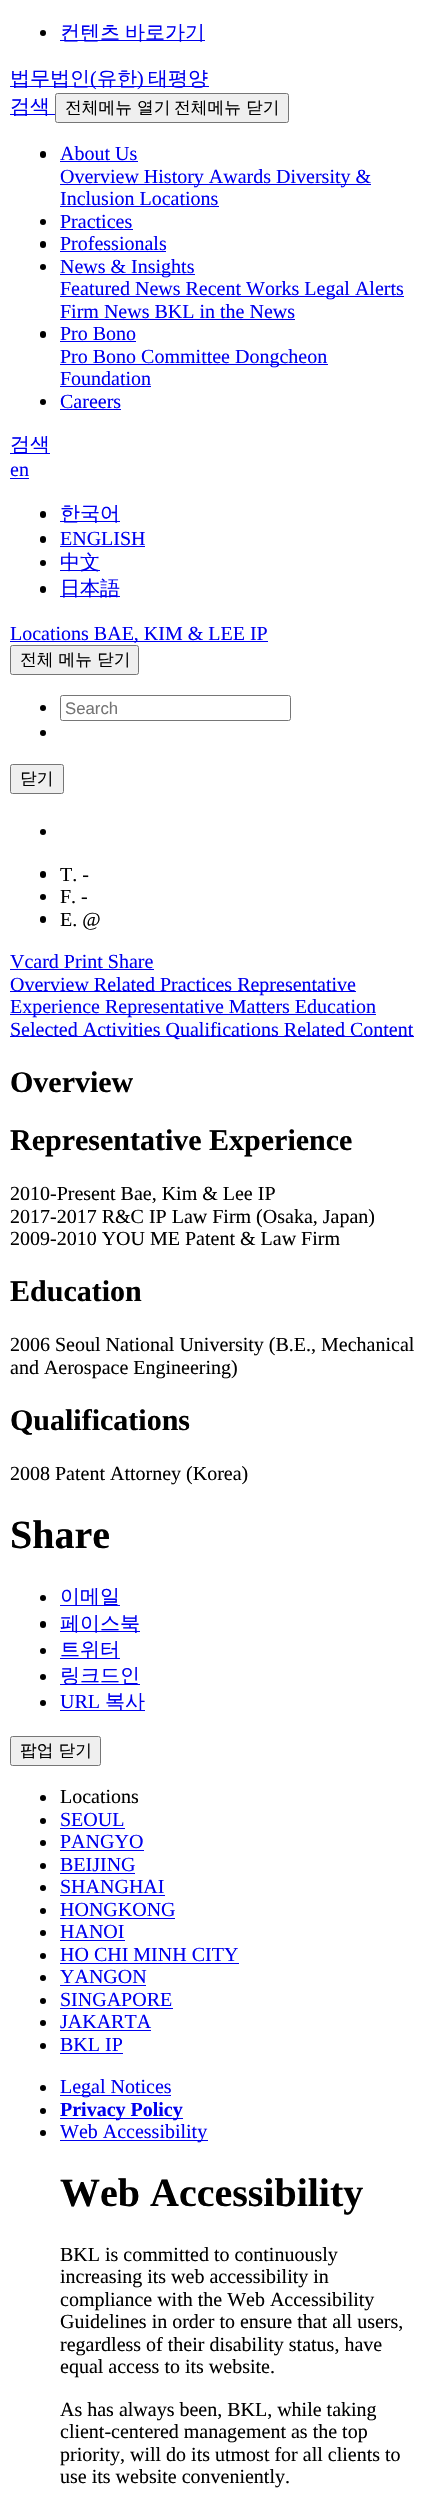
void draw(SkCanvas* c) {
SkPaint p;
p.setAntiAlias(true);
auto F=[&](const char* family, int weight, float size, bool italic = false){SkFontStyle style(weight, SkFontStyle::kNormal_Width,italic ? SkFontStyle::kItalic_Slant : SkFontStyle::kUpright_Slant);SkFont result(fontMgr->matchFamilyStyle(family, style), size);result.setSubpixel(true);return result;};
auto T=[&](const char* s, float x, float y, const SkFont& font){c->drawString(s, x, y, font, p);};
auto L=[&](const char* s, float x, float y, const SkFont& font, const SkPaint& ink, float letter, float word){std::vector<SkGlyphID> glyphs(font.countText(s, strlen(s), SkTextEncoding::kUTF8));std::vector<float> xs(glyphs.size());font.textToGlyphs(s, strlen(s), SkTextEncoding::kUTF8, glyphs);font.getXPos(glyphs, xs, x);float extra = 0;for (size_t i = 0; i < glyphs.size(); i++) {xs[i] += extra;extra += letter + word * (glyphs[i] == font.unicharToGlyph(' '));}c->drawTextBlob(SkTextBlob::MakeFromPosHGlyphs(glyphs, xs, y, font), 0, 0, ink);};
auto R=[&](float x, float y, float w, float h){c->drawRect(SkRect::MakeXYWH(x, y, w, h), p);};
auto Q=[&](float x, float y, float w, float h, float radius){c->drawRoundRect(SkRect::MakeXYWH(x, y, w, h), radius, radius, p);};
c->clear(0xffffffff);
p.setColor(0xff000000);
c->drawCircle(43,33,3,p);
p.setColor(0xff0000ee);
R(60,40,145,1);
auto f1 = F("WenQuanYi Zen Hei",500,20);
L("컨텐츠 바로가기",60,39,f1,p,0,-1);
R(10,86,199,1);
T("법무법인",10,85,f1);
auto f2 = F("Liberation Serif",400,20);
T("(",90,85,f2);
T("유한",97,85,f1);
T(")",137,85,f2);
T("태평양",148,85,f1);
R(10,114,45,1);
T("검색",10,113,f1);
p.setColor(0xffefefef);
c->drawRoundRect(SkRect::MakeXYWH(55.5,93.5,233,29),2,2,p);
p.setStroke(true);
p.setStrokeWidth(1);
p.setColor(0xff767676);
c->drawRoundRect(SkRect::MakeXYWH(55.5,93.5,233,29),2,2,p);
auto f3 = F("WenQuanYi Zen Hei",500,16.75);
p.setStroke(false);
p.setColor(0xff000000);
T("전체메뉴 열기",65,113,f3);
T("전체메뉴 닫기",174,113,f3);
Q(40,151,6,7,3);
p.setColor(0xff0000ee);
T("About Us",60,160,f2);
R(60,161,78,1);
R(60,184,311,1);
T("Overview History Awards Diversity &",60,183,f2);
T("Inclusion Locations",60,205,f2);
R(60,206,159,1);
p.setColor(0xff000000);
c->drawCircle(43,222,3,p);
p.setColor(0xff0000ee);
T("Practices",60,228,f2);
R(60,229,73,1);
p.setColor(0xff000000);
Q(40,241,6,7,3);
p.setColor(0xff0000ee);
T("Professionals",60,250,f2);
R(60,251,106,1);
p.setColor(0xff000000);
c->drawCircle(43,267,3,p);
p.setColor(0xff0000ee);
R(60,274,135,1);
T("News & Insights",60,273,f2);
R(60,296,344,1);
T("Featured News Recent Works Legal Alerts",60,295,f2);
T("Firm News BKL in the News",60,318,f2);
R(60,319,235,1);
p.setColor(0xff000000);
Q(40,331,6,7,3);
p.setColor(0xff0000ee);
T("Pro Bono",60,340,f2);
R(60,341,76,1);
R(60,364,268,1);
T("Pro Bono Committee Dongcheon",60,363,f2);
T("Foundation",60,385,f2);
R(60,386,91,1);
p.setColor(0xff000000);
c->drawCircle(43,402,3,p);
p.setColor(0xff0000ee);
T("Careers",60,408,f2);
R(60,409,61,1);
R(10,453,40,1);
T("검색",10,451,f1);
T("en",10,476,f2);
R(10,478,19,1);
p.setColor(0xff000000);
Q(40,511,6,7,3);
p.setColor(0xff0000ee);
R(60,521,60,1);
T("한국어",60,520,f1);
p.setColor(0xff000000);
Q(40,536,6,7,3);
p.setColor(0xff0000ee);
T("ENGLISH",60,545,f2);
R(60,546,85,1);
p.setColor(0xff000000);
c->drawCircle(43,563,3,p);
p.setColor(0xff0000ee);
R(60,570,40,1);
T("中文",60,569,f1);
p.setColor(0xff000000);
Q(40,586,6,7,3);
p.setColor(0xff0000ee);
R(60,596,60,1);
T("日本語",60,595,f1);
R(10,641,258,1);
T("Locations BAE, KIM & LEE IP",10,640,f2);
p.setColor(0xffefefef);
c->drawRoundRect(SkRect::MakeXYWH(10.5,645.5,128,29),2,2,p);
p.setStroke(true);
p.setColor(0xff767676);
c->drawRoundRect(SkRect::MakeXYWH(10.5,645.5,128,29),2,2,p);
p.setStroke(false);
p.setColor(0xff000000);
T("전체 메뉴 닫기",20,665,f3);
c->drawCircle(43,708,3,p);
p.setStroke(true);
p.setColor(0xff767676);
c->drawRoundRect(SkRect::MakeXYWH(60.5,695.5,230,25),2,2,p);
auto f4 = F("Liberation Sans",400,16.75);
p.setStroke(false);
p.setColor(0xff757575);
T("Search",65,714,f4);
p.setColor(0xff000000);
c->drawCircle(43,733,3,p);
p.setColor(0xffefefef);
c->drawRoundRect(SkRect::MakeXYWH(10.5,764.5,53,29),2,2,p);
p.setStroke(true);
p.setColor(0xff767676);
c->drawRoundRect(SkRect::MakeXYWH(10.5,764.5,53,29),2,2,p);
p.setStroke(false);
p.setColor(0xff000000);
T("닫기",20,784,f3);
c->drawCircle(43,832,3,p);
Q(40,871,6,7,3);
T("T. -",60,881,f2);
c->drawCircle(43,897,3,p);
T("F. -",60,903,f2);
Q(40,916,6,7,3);
T("E. @",60,926,f2);
p.setColor(0xff0000ee);
T("Vcard Print Share",10,968,f2);
R(10,969,144,1);
R(10,991,346,1);
T("Overview Related Practices Representative",10,991,f2);
R(10,1014,366,1);
T("Experience Representative Matters Education",10,1013,f2);
R(10,1036,404,1);
T("Selected Activities Qualifications Related Content",10,1036,f2);
auto f5 = F("Liberation Serif",700,30);
p.setColor(0xff000000);
T("Overview",10,1092,f5);
T("Representative Experience",10,1150,f5);
T("2010-Present Bae, Kim & Lee IP",10,1200,f2);
T("2017-2017 R&C IP Law Firm (Osaka, Japan)",10,1223,f2);
T("2009-2010 YOU ME Patent & Law Firm",10,1245,f2);
T("Education",10,1301,f5);
T("2006 Seoul National University (B.E., Mechanical",10,1351,f2);
T("and Aerospace Engineering)",10,1374,f2);
T("Qualifications",10,1430,f5);
T("2008 Patent Attorney (Korea)",10,1480,f2);
auto f6 = F("Liberation Serif",700,40);
T("Share",10,1548,f6);
c->drawCircle(43,1598,3,p);
p.setColor(0xff0000ee);
R(60,1605,60,1);
T("이메일",60,1603,f1);
p.setColor(0xff000000);
Q(40,1621,6,7,3);
p.setColor(0xff0000ee);
R(60,1631,80,1);
T("페이스북",60,1630,f1);
p.setColor(0xff000000);
c->drawCircle(43,1651,3,p);
p.setColor(0xff0000ee);
R(60,1658,60,1);
T("트위터",60,1656,f1);
p.setColor(0xff000000);
c->drawCircle(43,1677,3,p);
p.setColor(0xff0000ee);
R(60,1684,80,1);
T("링크드인",60,1682,f1);
p.setColor(0xff000000);
c->drawCircle(43,1703,3,p);
p.setColor(0xff0000ee);
T("URL",60,1708,f2);
R(60,1710,85,1);
T("복사",105,1708,f1);
p.setColor(0xffefefef);
c->drawRoundRect(SkRect::MakeXYWH(10.5,1736.5,90,29),2,2,p);
p.setStroke(true);
p.setColor(0xff767676);
c->drawRoundRect(SkRect::MakeXYWH(10.5,1736.5,90,29),2,2,p);
p.setStroke(false);
p.setColor(0xff000000);
T("팝업 닫기",20,1756,f3);
c->drawCircle(43,1798,3,p);
T("Locations",60,1803,f2);
c->drawCircle(43,1821,3,p);
p.setColor(0xff0000ee);
T("SEOUL",60,1826,f2);
R(60,1828,65,1);
p.setColor(0xff000000);
c->drawCircle(43,1843,3,p);
p.setColor(0xff0000ee);
T("PANGYO",60,1848,f2);
R(60,1850,84,1);
p.setColor(0xff000000);
c->drawCircle(43,1866,3,p);
p.setColor(0xff0000ee);
T("BEIJING",60,1871,f2);
R(60,1873,75,1);
p.setColor(0xff000000);
c->drawCircle(43,1888,3,p);
p.setColor(0xff0000ee);
T("SHANGHAI",60,1893,f2);
R(60,1895,105,1);
p.setColor(0xff000000);
c->drawCircle(43,1911,3,p);
p.setColor(0xff0000ee);
T("HONGKONG",60,1916,f2);
R(60,1918,115,1);
p.setColor(0xff000000);
c->drawCircle(43,1933,3,p);
p.setColor(0xff0000ee);
T("HANOI",60,1938,f2);
R(60,1940,65,1);
p.setColor(0xff000000);
c->drawCircle(43,1956,3,p);
p.setColor(0xff0000ee);
T("HO CHI MINH CITY",60,1961,f2);
R(60,1963,179,1);
p.setColor(0xff000000);
c->drawCircle(43,1978,3,p);
p.setColor(0xff0000ee);
T("YANGON",60,1983,f2);
R(60,1985,86,1);
p.setColor(0xff000000);
c->drawCircle(43,2001,3,p);
p.setColor(0xff0000ee);
T("SINGAPORE",60,2006,f2);
R(60,2008,113,1);
p.setColor(0xff000000);
c->drawCircle(43,2023,3,p);
p.setColor(0xff0000ee);
T("JAKARTA",60,2028,f2);
R(60,2030,91,1);
p.setColor(0xff000000);
c->drawCircle(43,2046,3,p);
p.setColor(0xff0000ee);
T("BKL IP",60,2051,f2);
R(60,2053,63,1);
p.setColor(0xff000000);
c->drawCircle(43,2088,3,p);
p.setColor(0xff0000ee);
R(60,2095,111,1);
T("Legal Notices",60,2093,f2);
p.setColor(0xff000000);
c->drawCircle(43,2111,3,p);
p.setColor(0xff0000ee);
R(60,2118,123,1);
auto f7 = F("Liberation Serif",700,20);
T("Privacy Policy",60,2116,f7);
p.setColor(0xff000000);
c->drawCircle(43,2133,3,p);
p.setColor(0xff0000ee);
R(60,2140,148,1);
T("Web Accessibility",60,2138,f2);
p.setColor(0xff000000);
T("Web Accessibility",60,2206,f6);
T("BKL is committed to continuously",60,2261,f2);
T("increasing its web accessibility in",60,2283,f2);
T("compliance with the Web Accessibility",60,2306,f2);
T("Guidelines in order to ensure that all users,",60,2328,f2);
T("regardless of their disability status, have",60,2351,f2);
T("equal access to its website.",60,2373,f2);
T("As has always been, BKL, while taking",60,2416,f2);
T("client-centered management as the top",60,2438,f2);
T("priority, will do its utmost for all clients to",60,2461,f2);
T("use its website conveniently.",60,2483,f2);
}
